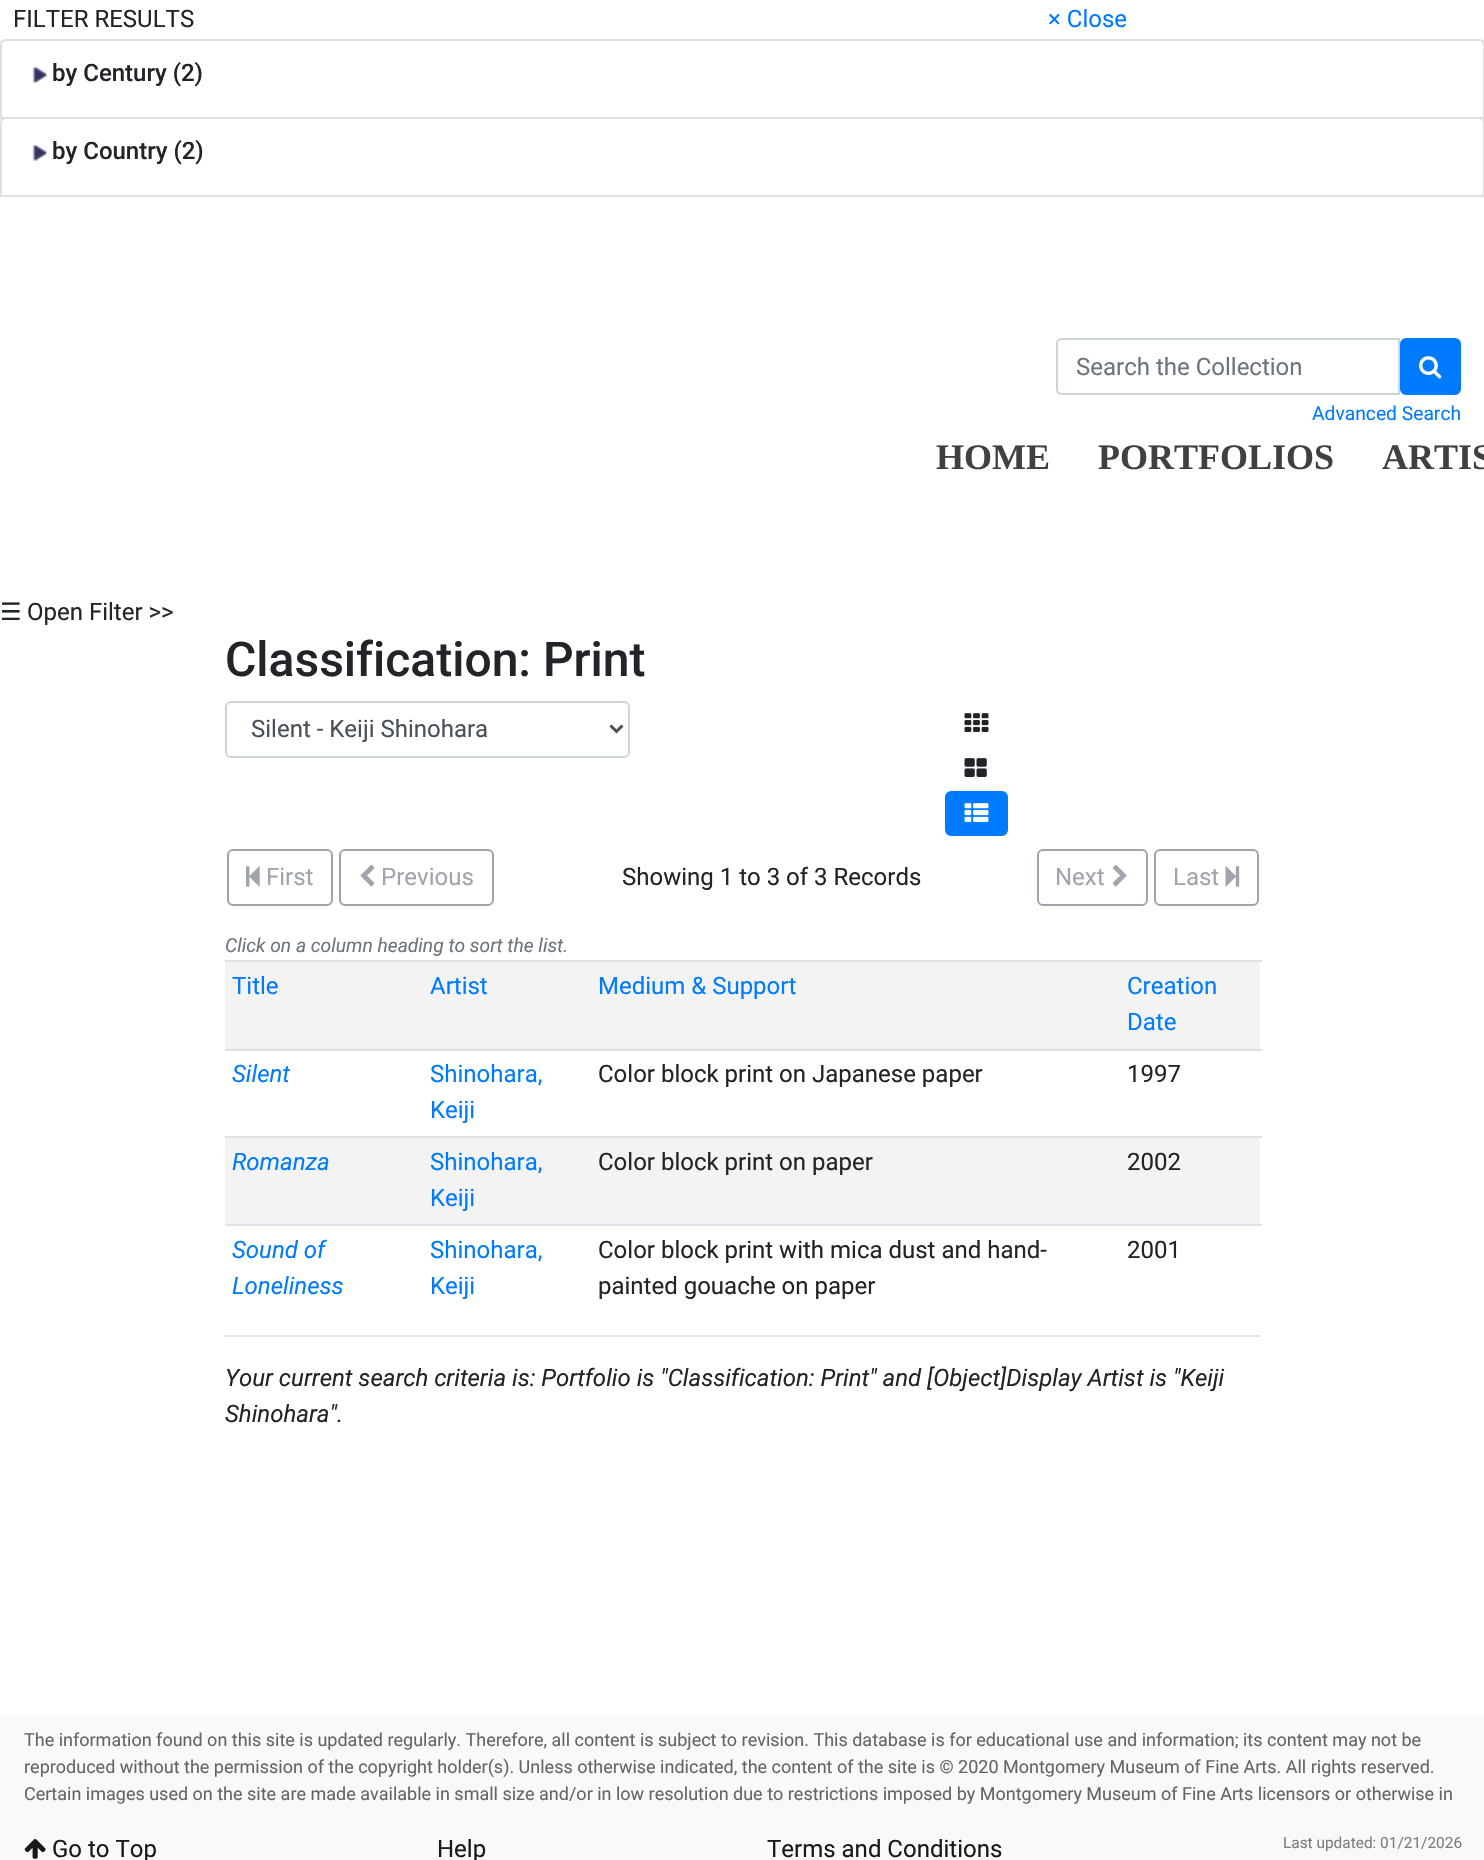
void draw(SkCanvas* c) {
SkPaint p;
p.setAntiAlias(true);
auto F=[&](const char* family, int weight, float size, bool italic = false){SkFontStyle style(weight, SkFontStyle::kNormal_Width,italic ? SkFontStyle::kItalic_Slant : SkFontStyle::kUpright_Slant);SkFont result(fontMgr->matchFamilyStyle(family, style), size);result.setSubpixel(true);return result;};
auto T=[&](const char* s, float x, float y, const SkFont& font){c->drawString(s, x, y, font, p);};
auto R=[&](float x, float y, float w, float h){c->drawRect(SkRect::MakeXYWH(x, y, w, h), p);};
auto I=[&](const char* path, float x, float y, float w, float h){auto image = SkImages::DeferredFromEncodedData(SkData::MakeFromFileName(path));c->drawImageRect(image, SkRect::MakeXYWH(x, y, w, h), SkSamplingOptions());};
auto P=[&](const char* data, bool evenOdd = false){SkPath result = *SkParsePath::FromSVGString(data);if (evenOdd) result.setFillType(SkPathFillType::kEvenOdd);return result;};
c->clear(0xffffffff);
auto f1 = F("Roboto",400,24);
p.setColor(0xff212529);
T("FILTER RESULTS",13,27,f1);
p.setColor(0xff007bff);
T("× Close",1048,27,f1);
p.setStroke(true);
p.setStrokeWidth(2);
p.setColor(0xffdfdfdf);
c->drawPath(P("M6 40h1473c3 0 5 2 5 5v73h-1483v-73c0-3 2-5 5-5z"),p);
I("1.png",31,67,16,16);
auto f2 = F("Roboto",500,24);
p.setStroke(false);
p.setColor(0xff212529);
T("by Century (2)",52,81,f2);
p.setColor(0xffffffff);
c->drawPath(P("M6 117h1473c3.5 0 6 2.5 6 6v74h-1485v-74c0-3.5 2.5-6 6-6z"),p);
p.setStroke(true);
p.setColor(0x1f000000);
c->drawPath(P("M6 118h1473c3 0 5 2 5 5v73h-1483v-73c0-3 2-5 5-5z"),p);
I("1.png",31,145,16,16);
p.setStroke(false);
p.setColor(0xff212529);
T("by Country (2)",52,159,f2);
p.setStroke(true);
p.setColor(0xffced4da);
c->drawPath(P("M1062 339h337v55h-337c-3 0-5-2-5-5v-45c0-3 2-5 5-5z"),p);
p.setStroke(false);
p.setColor(0xff6c757d);
T("Search the Collection",1076,375,f1);
p.setColor(0xff007bff);
c->drawRoundRect(SkRect::MakeXYWH(1401,339,59,55),5,5,p);
p.setStroke(true);
c->drawRoundRect(SkRect::MakeXYWH(1401,339,59,55),5,5,p);
I("2.png",1419,356,23,23);
auto f3 = F("Roboto",400,19.25);
p.setStroke(false);
T("Advanced Search",1312,420,f3);
auto f4 = F("Liberation Serif",700,36);
p.setColor(0xff404040);
T("HOME",936,469,f4);
T("PORTFOLIOS",1098,469,f4);
T("ARTIS",1382,469,f4);
auto f5 = F("DejaVu Sans",400,24);
p.setColor(0xff212529);
T("☰",0,620,f5);
T("Open Filter >>",27,620,f1);
auto f6 = F("Roboto",500,48);
T("Classification: Print",225,676,f6);
p.setStroke(true);
p.setColor(0xffced4da);
c->drawRoundRect(SkRect::MakeXYWH(226,702,403,55),5,5,p);
p.setStrokeWidth(3);
p.setColor(0xff495057);
c->drawPath(P("M610.5 725.5l6 6l6-6"),p);
p.setStroke(false);
T("Silent - Keiji Shinohara",251,737,f1);
I("3.png",964,713,25,19);
I("4.png",964,758,23,19);
p.setColor(0xff007bff);
c->drawRoundRect(SkRect::MakeXYWH(946,792,61,43),5,5,p);
p.setStroke(true);
p.setStrokeWidth(2);
c->drawRoundRect(SkRect::MakeXYWH(946,792,61,43),5,5,p);
I("5.png",964,803,25,19);
p.setColor(0xff9fa5ab);
c->drawRoundRect(SkRect::MakeXYWH(228,850,104,55),5,5,p);
I("6.png",246,866,14,21);
p.setStroke(false);
T("First",266,885,f1);
p.setStroke(true);
c->drawRoundRect(SkRect::MakeXYWH(340,850,153,55),5,5,p);
I("7.png",360,864,15,23);
p.setStroke(false);
T("Previous",381,885,f1);
p.setColor(0xff212529);
T("Showing 1 to 3 of 3 Records",622,885,f1);
p.setStroke(true);
p.setColor(0xff9fa5ab);
c->drawRoundRect(SkRect::MakeXYWH(1038,850,109,55),5,5,p);
p.setStroke(false);
T("Next",1055,885,f1);
I("8.png",1112,864,15,23);
p.setStroke(true);
c->drawRoundRect(SkRect::MakeXYWH(1155,850,103,55),5,5,p);
p.setStroke(false);
T("Last",1173,885,f1);
I("9.png",1225,866,15,21);
auto f7 = F("Roboto",400,19.25,true);
p.setColor(0xff6c757d);
T("Click on a column heading to sort the list.",225,952,f7);
p.setColor(0xfff3f3f3);
R(225,962,1035,87);
p.setColor(0xff007bff);
T("Title",232,994,f1);
T("Artist",430,994,f1);
T("Medium & Support",598,994,f1);
p.setColor(0xffdee2e6);
R(225,960,1037,2);
p.setColor(0xff007bff);
T("Creation",1127,994,f1);
T("Date",1127,1030,f1);
auto f8 = F("Roboto",400,24,true);
T("Silent",232,1082,f8);
T("Shinohara,",430,1082,f1);
T("Keiji",430,1118,f1);
p.setColor(0xff212529);
T("Color block print on Japanese paper",598,1082,f1);
p.setColor(0xffdee2e6);
R(225,1049,1037,2);
p.setColor(0xff212529);
T("1997",1127,1082,f1);
p.setColor(0xfff3f3f3);
R(225,1138,1035,86);
p.setColor(0xff007bff);
T("Romanza",232,1170,f8);
T("Shinohara,",430,1170,f1);
T("Keiji",430,1206,f1);
p.setColor(0xff212529);
T("Color block print on paper",598,1170,f1);
p.setColor(0xffdee2e6);
R(225,1136,1037,2);
p.setColor(0xff212529);
T("2002",1127,1170,f1);
p.setColor(0xff007bff);
T("Sound of",232,1258,f8);
T("Loneliness",232,1294,f8);
T("Shinohara,",430,1258,f1);
T("Keiji",430,1294,f1);
p.setColor(0xff212529);
T("Color block print with mica dust and hand-",598,1258,f1);
T("painted gouache on paper",598,1294,f1);
p.setColor(0xffdee2e6);
R(225,1224,1037,2);
p.setColor(0xff212529);
T("2001",1127,1258,f1);
p.setColor(0xffe6e6e6);
R(225,1335,1035,2);
p.setColor(0xff212529);
T("Your current search criteria is: Portfolio is \"Classification: Print\" and [Object]Display Artist is \"Keiji",225,1386,f8);
T("Shinohara\".",225,1422,f8);
p.setColor(0xfff8f9fa);
R(0,1715,1484,145);
auto f9 = F("Roboto",400,18);
p.setColor(0xff626568);
T("The information found on this site is updated regularly. Therefore, all content is subject to revision. This database is for educational use and information; its content may not be",24,1746,f9);
T("reproduced without the permission of the copyright holder(s). Unless otherwise indicated, the content of the site is © 2020 Montgomery Museum of Fine Arts. All rights reserved.",24,1773,f9);
T("Certain images used on the site are made available in small size and/or in low resolution due to restrictions imposed by Montgomery Museum of Fine Arts licensors or otherwise in",24,1800,f9);
I("10.png",24,1839,22,20);
p.setColor(0xff191919);
T("Go to Top",52,1857,f1);
T("Help",437,1857,f1);
T("Terms and Conditions",767,1857,f1);
auto f10 = F("Roboto",400,15.4);
p.setColor(0xff7c7d7d);
T("Last updated: 01/21/2026",1283,1848,f10);
}
